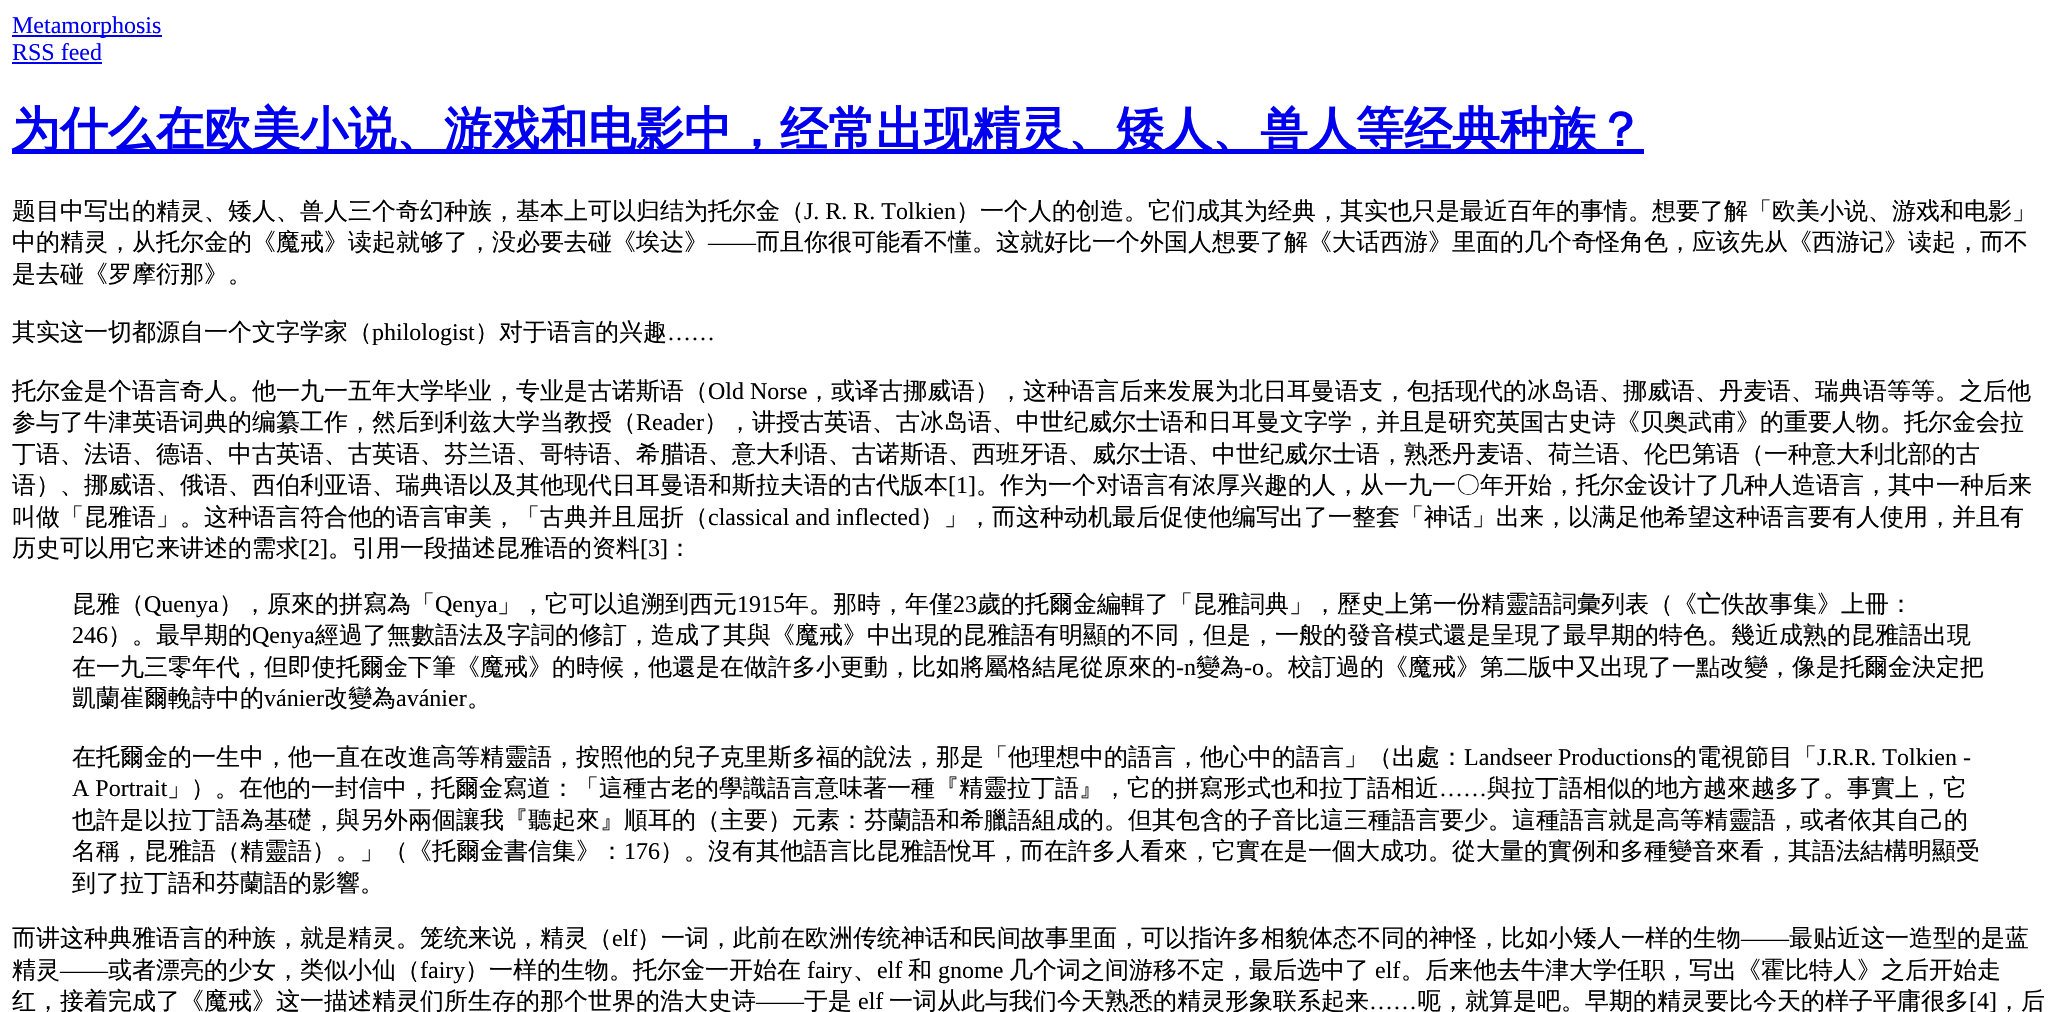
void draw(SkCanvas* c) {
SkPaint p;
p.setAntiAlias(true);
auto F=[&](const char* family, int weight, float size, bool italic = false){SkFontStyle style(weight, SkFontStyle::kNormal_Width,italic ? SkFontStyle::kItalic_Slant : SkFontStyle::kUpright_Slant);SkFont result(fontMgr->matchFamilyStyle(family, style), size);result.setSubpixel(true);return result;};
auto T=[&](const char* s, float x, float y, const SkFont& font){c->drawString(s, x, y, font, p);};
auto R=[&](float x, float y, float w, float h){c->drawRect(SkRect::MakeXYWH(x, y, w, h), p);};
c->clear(0xffffffff);
p.setColor(0xff0000ee);
R(12,35,150,2);
auto f1 = F("Liberation Serif",400,24);
T("Metamorphosis",12,33,f1);
T("RSS feed",12,60,f1);
R(12,62,90,2);
R(12,149,1632,5);
auto f2 = F("WenQuanYi Zen Hei",700,48);
T("为什么在欧美小说、游戏和电影中，经常出现精灵、矮人、兽人等经典种族？",12,146,f2);
auto f3 = F("WenQuanYi Zen Hei",500,24);
p.setColor(0xff000000);
T("题目中写出的精灵、矮人、兽人三个奇幻种族，基本上可以归结为托尔金（",12,219,f3);
T("J. R. R. Tolkien",804,219,f1);
T("）一个人的创造。它们成其为经典，其实也只是最近百年的事情。想要了解「欧美小说、游戏和电影」",956,219,f3);
T("中的精灵，从托尔金的《魔戒》读起就够了，没必要去碰《埃达》",12,250,f3);
T("——",708,250,f1);
T("而且你很可能看不懂。这就好比一个外国人想要了解《大话西游》里面的几个奇怪角色，应该先从《西游记》读起，而不",756,250,f3);
T("是去碰《罗摩衍那》。",12,282,f3);
T("其实这一切都源自一个文字学家（",12,340,f3);
T("philologist",372,340,f1);
T("）对于语言的兴趣",475,340,f3);
T("……",667,340,f1);
T("托尔金是个语言奇人。他一九一五年大学毕业，专业是古诺斯语（",12,399,f3);
T("Old Norse",708,399,f1);
T("，或译古挪威语），这种语言后来发展为北日耳曼语支，包括现代的冰岛语、挪威语、丹麦语、瑞典语等等。之后他",807,399,f3);
T("参与了牛津英语词典的编纂工作，然后到利兹大学当教授（",12,430,f3);
T("Reader",636,430,f1);
T("），讲授古英语、古冰岛语、中世纪威尔士语和日耳曼文字学，并且是研究英国古史诗《贝奥武甫》的重要人物。托尔金会拉",704,430,f3);
T("丁语、法语、德语、中古英语、古英语、芬兰语、哥特语、希腊语、意大利语、古诺斯语、西班牙语、威尔士语、中世纪威尔士语，熟悉丹麦语、荷兰语、伦巴第语（一种意大利北部的古",12,462,f3);
T("语）、挪威语、俄语、西伯利亚语、瑞典语以及其他现代日耳曼语和斯拉夫语的古代版本",12,493,f3);
T("[1]",948,493,f1);
T("。作为一个对语言有浓厚兴趣的人，从一九一〇年开始，托尔金设计了几种人造语言，其中一种后来",976,493,f3);
T("叫做「昆雅语」。这种语言符合他的语言审美，「古典并且屈折（",12,525,f3);
T("classical and inflected",708,525,f1);
T("）」，而这种动机最后促使他编写出了一整套「神话」出来，以满足他希望这种语言要有人使用，并且有",920,525,f3);
T("历史可以用它来讲述的需求",12,556,f3);
T("[2]",300,556,f1);
T("。引用一段描述昆雅语的资料",328,556,f3);
T("[3]",640,556,f1);
T("：",668,556,f3);
T("昆雅（",72,612,f3);
T("Quenya",144,612,f1);
T("），原來的拼寫為「",219,612,f3);
T("Qenya",435,612,f1);
T("」，它可以追溯到西元",497,612,f3);
T("1915",737,612,f1);
T("年。那時，年僅",785,612,f3);
T("23",953,612,f1);
T("歲的托爾金編輯了「昆雅詞典」，歷史上第一份精靈語詞彙列表（《亡佚故事集》上冊：",977,612,f3);
T("246",72,643,f1);
T("）。最早期的",108,643,f3);
T("Qenya",252,643,f1);
T("經過了無數語法及字詞的修訂，造成了其與《魔戒》中出現的昆雅語有明顯的不同，但是，一般的發音模式還是呈現了最早期的特色。幾近成熟的昆雅語出現",315,643,f3);
T("在一九三零年代，但即使托爾金下筆《魔戒》的時候，他還是在做許多小更動，比如將屬格結尾從原來的",72,675,f3);
T("-n",1176,675,f1);
T("變為",1196,675,f3);
T("-o",1244,675,f1);
T("。校訂過的《魔戒》第二版中又出現了一點改變，像是托爾金決定把",1264,675,f3);
T("凱蘭崔爾輓詩中的",72,706,f3);
T("vánier",264,706,f1);
T("改變為",324,706,f3);
T("avánier",396,706,f1);
T("。",467,706,f3);
T("在托爾金的一生中，他一直在改進高等精靈語，按照他的兒子克里斯多福的說法，那是「他理想中的語言，他心中的語言」（出處：",72,765,f3);
T("Landseer Productions",1464,765,f1);
T("的電視節目「",1673,765,f3);
T("J.R.R. Tolkien -",1817,765,f1);
T("A Portrait",72,796,f1);
T("」）。在他的一封信中，托爾金寫道：「這種古老的學識語言意味著一種『精靈拉丁語』，它的拼寫形式也和拉丁語相近",167,796,f3);
T("……",1439,796,f1);
T("與拉丁語相似的地方越來越多了。事實上，它",1487,796,f3);
T("也許是以拉丁語為基礎，與另外兩個讓我『聽起來』順耳的（主要）元素：芬蘭語和希臘語組成的。但其包含的子音比這三種語言要少。這種語言就是高等精靈語，或者依其自己的",72,828,f3);
T("名稱，昆雅語（精靈語）。」（《托爾金書信集》：",72,859,f3);
T("176",624,859,f1);
T("）。沒有其他語言比昆雅語悅耳，而在許多人看來，它實在是一個大成功。從大量的實例和多種變音來看，其語法結構明顯受",660,859,f3);
T("到了拉丁語和芬蘭語的影響。",72,891,f3);
T("而讲这种典雅语言的种族，就是精灵。笼统来说，精灵（",12,946,f3);
T("elf",612,946,f1);
T("）一词，此前在欧洲传统神话和民间故事里面，可以指许多相貌体态不同的神怪，比如小矮人一样的生物",637,946,f3);
T("——",1741,946,f1);
T("最贴近这一造型的是蓝",1789,946,f3);
T("精灵",12,978,f3);
T("——",60,978,f1);
T("或者漂亮的少女，类似小仙（",108,978,f3);
T("fairy",420,978,f1);
T("）一样的生物。托尔金一开始在",465,978,f3);
T("fairy",807,978,f1);
T("elf",877,978,f1);
T("和",908,978,f3);
T("gnome",938,978,f1);
T("几个词之间游移不定，最后选中了",1009,978,f3);
T("elf",1375,978,f1);
T("。后来他去牛津大学任职，写出《霍比特人》之后开始走",1401,978,f3);
T("、",853,978,f3);
T("红，接着完成了《魔戒》这一描述精灵们所生存的那个世界的浩大史诗",12,1009,f3);
T("——",756,1009,f1);
T("于是",804,1009,f3);
T("elf",858,1009,f1);
T("一词从此与我们今天熟悉的精灵形象联系起来",889,1009,f3);
T("呃，就算是吧。早期的精灵要比今天的样子平庸很多",1417,1009,f3);
T("[4]",1969,1009,f1);
T("，后",1997,1009,f3);
T("……",1369,1009,f1);
}
